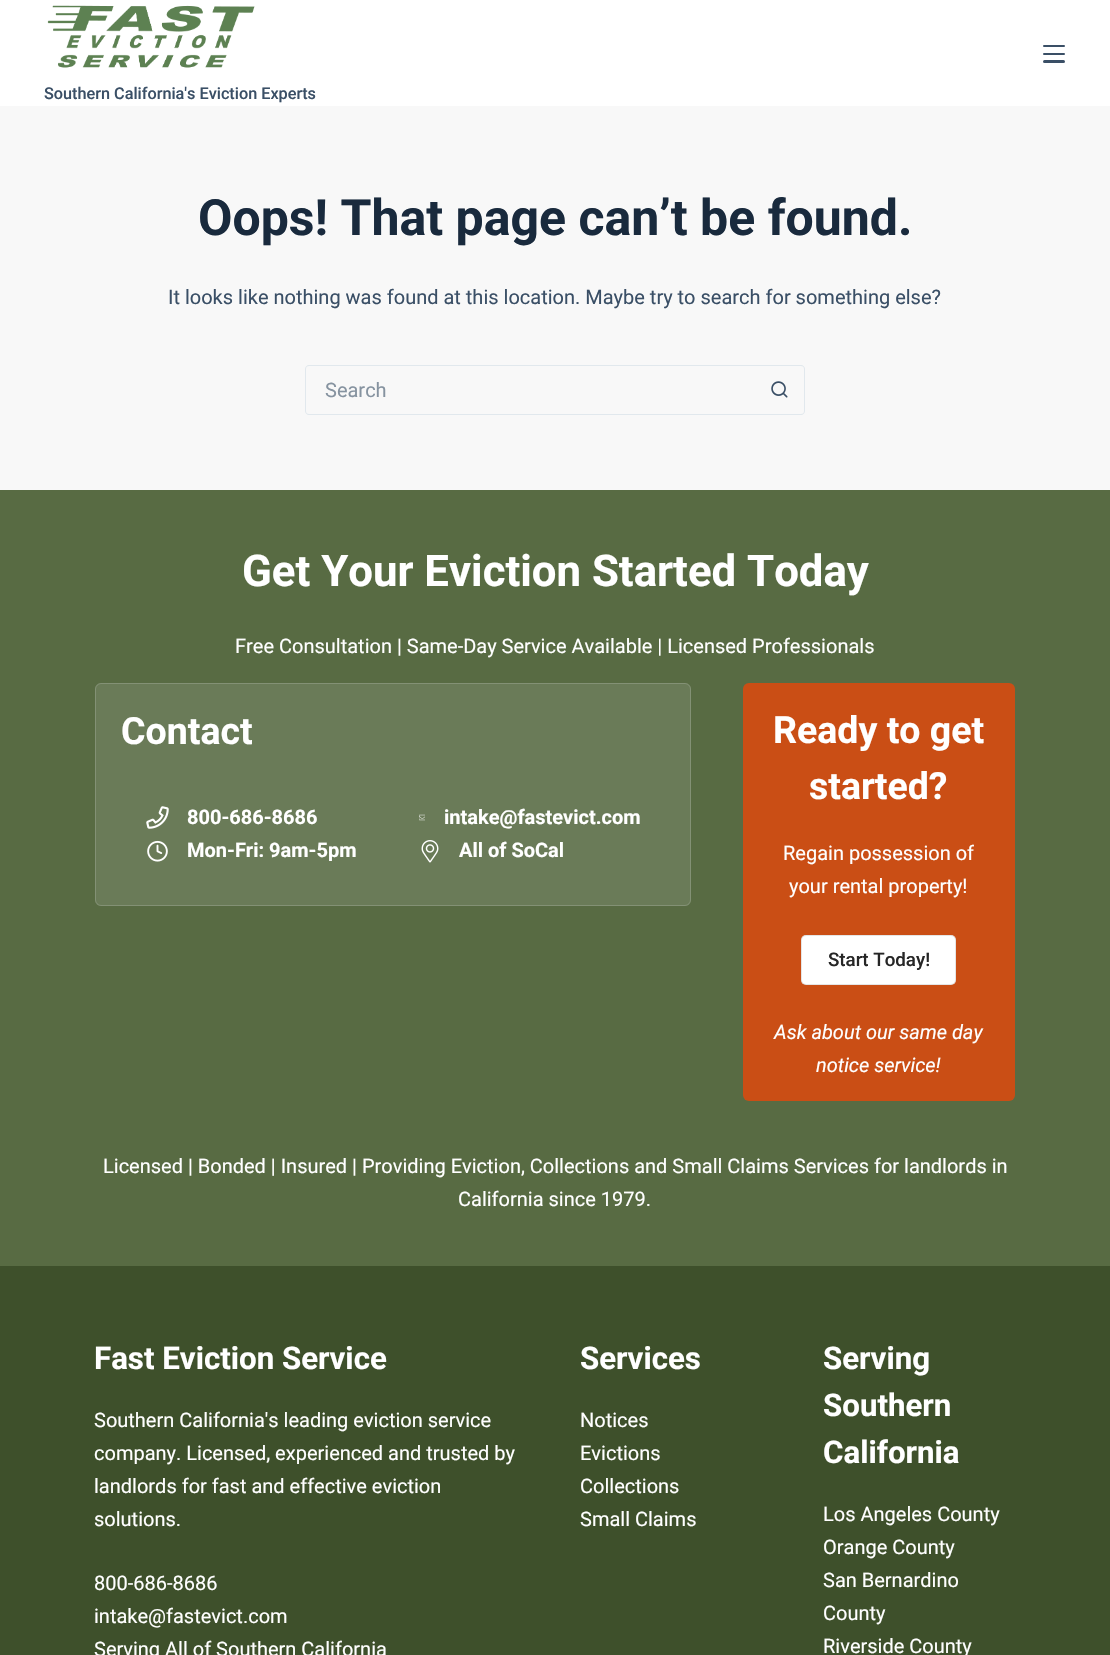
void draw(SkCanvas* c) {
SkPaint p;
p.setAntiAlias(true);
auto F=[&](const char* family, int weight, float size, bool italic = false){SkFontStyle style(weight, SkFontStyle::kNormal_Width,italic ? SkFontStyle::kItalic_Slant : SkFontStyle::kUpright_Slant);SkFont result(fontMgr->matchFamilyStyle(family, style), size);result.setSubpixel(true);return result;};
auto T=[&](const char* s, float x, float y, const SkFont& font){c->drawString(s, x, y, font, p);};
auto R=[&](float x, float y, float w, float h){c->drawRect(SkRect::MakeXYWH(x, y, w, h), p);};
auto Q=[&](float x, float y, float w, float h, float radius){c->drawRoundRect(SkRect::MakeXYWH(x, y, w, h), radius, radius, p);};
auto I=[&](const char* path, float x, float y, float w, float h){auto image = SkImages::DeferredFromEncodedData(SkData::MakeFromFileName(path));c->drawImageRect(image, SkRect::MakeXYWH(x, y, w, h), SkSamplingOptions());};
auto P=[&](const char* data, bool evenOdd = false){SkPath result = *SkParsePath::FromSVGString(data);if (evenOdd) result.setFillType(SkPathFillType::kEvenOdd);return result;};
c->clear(0xfff8f8f8);
p.setColor(0xffffffff);
R(0,0,1110,106);
p.setColor(0xff3a4f66);
Q(1043,45,22,2,1);
Q(1043,53,22,2,1);
Q(1043,60,22,3,1.5);
I("1.png",47,5,208,63);
auto f1 = F("Roboto",500,16.25);
T("Southern California's Eviction Experts",44,99,f1);
auto f2 = F("Roboto",700,50);
p.setColor(0xff192a3d);
T("Oops! That page can’t be found.",198,235,f2);
auto f3 = F("Roboto",400,20);
p.setColor(0xff3a4f66);
T("It looks like nothing was found at this location. Maybe try to search for something else?",168,304,f3);
p.setColor(0xffe1e8ed);
c->drawPath(P("M309 365h446v50h-446c-2 0-4-2-4-4v-42c0-2 2-4 4-4zm0 1h446v48h-446c-2 0-3-1-3-3v-42c0-2 1-3 3-3z",true),p);
p.setColor(0xff8693a0);
T("Search",325,397,f3);
p.setColor(0xffe1e8ed);
c->drawPath(P("M755 365h46c2 0 4 2 4 4v42c0 2-2 4-4 4h-46zm0 1h46c2 0 3 1 3 3v42c0 2-1 3-3 3h-46z",true),p);
I("2.png",771,381,17,17);
p.setColor(0xff586b43);
R(0,490,1110,776);
auto f4 = F("Roboto",700,43.75);
p.setColor(0xffffffff);
T("Get Your Eviction Started Today",242,586,f4);
T("Free Consultation | Same-Day Service Available | Licensed Professionals",235,653,f3);
p.setColor(0xff6a7b58);
Q(95,683,596,223,6);
p.setStroke(true);
p.setStrokeWidth(1);
p.setColor(0x2ef2f5f7);
c->drawRoundRect(SkRect::MakeXYWH(95.5,683.5,595,222),5.5,5.5,p);
auto f5 = F("Roboto",700,37.5);
p.setStroke(false);
p.setColor(0xffffffff);
T("Contact",121,744,f5);
I("3.png",146,806,23,23);
auto f6 = F("Roboto",700,20);
T("800-686-8686",187,824,f6);
I("4.png",147,840,21,22);
T("Mon-Fri: 9am-5pm",187,857,f6);
I("5.png",419,814,6,7);
T("intake@fastevict.com",444,824,f6);
I("6.png",421,840,18,23);
T("All of SoCal",459,857,f6);
p.setColor(0xffca4e15);
Q(743,683,272,418,6);
p.setColor(0xffffffff);
T("Ready to get",773,743,f5);
T("started?",809,799,f5);
T("Regain possession of",783,860,f3);
T("your rental property!",789,893,f3);
Q(801,935,155,50,5);
p.setStroke(true);
p.setColor(0x1a000000);
c->drawRoundRect(SkRect::MakeXYWH(801.5,935.5,154,49),4.5,4.5,p);
auto f7 = F("Roboto",500,18.75);
p.setStroke(false);
p.setColor(0xff262626);
T("Start Today!",828,966,f7);
auto f8 = F("Roboto",400,20,true);
p.setColor(0xffffffff);
T("Ask about our same day",774,1039,f8);
T("notice service!",816,1072,f8);
T("Licensed | Bonded | Insured | Providing Eviction, Collections and Small Claims Services for landlords in",103,1173,f3);
T("California since 1979.",458,1206,f3);
p.setColor(0xff3e502b);
R(0,1266,1110,389);
auto f9 = F("Roboto",700,31.25);
p.setColor(0xffffffff);
T("Fast Eviction Service",94,1369,f9);
T("Southern California's leading eviction service",94,1427,f3);
T("company. Licensed, experienced and trusted by",94,1460,f3);
T("landlords for fast and effective eviction",94,1493,f3);
T("solutions.",94,1526,f3);
T("800-686-8686",94,1590,f3);
T("intake@fastevict.com",94,1623,f3);
T("Serving All of Southern California",94,1656,f3);
T("Services",580,1369,f9);
T("Notices",580,1427,f3);
T("Evictions",580,1460,f3);
T("Collections",580,1493,f3);
T("Small Claims",580,1526,f3);
T("Serving",823,1369,f9);
T("Southern",823,1416,f9);
T("California",823,1463,f9);
T("Los Angeles County",823,1521,f3);
T("Orange County",823,1554,f3);
T("San Bernardino",823,1587,f3);
T("County",823,1620,f3);
T("Riverside County",823,1653,f3);
}
